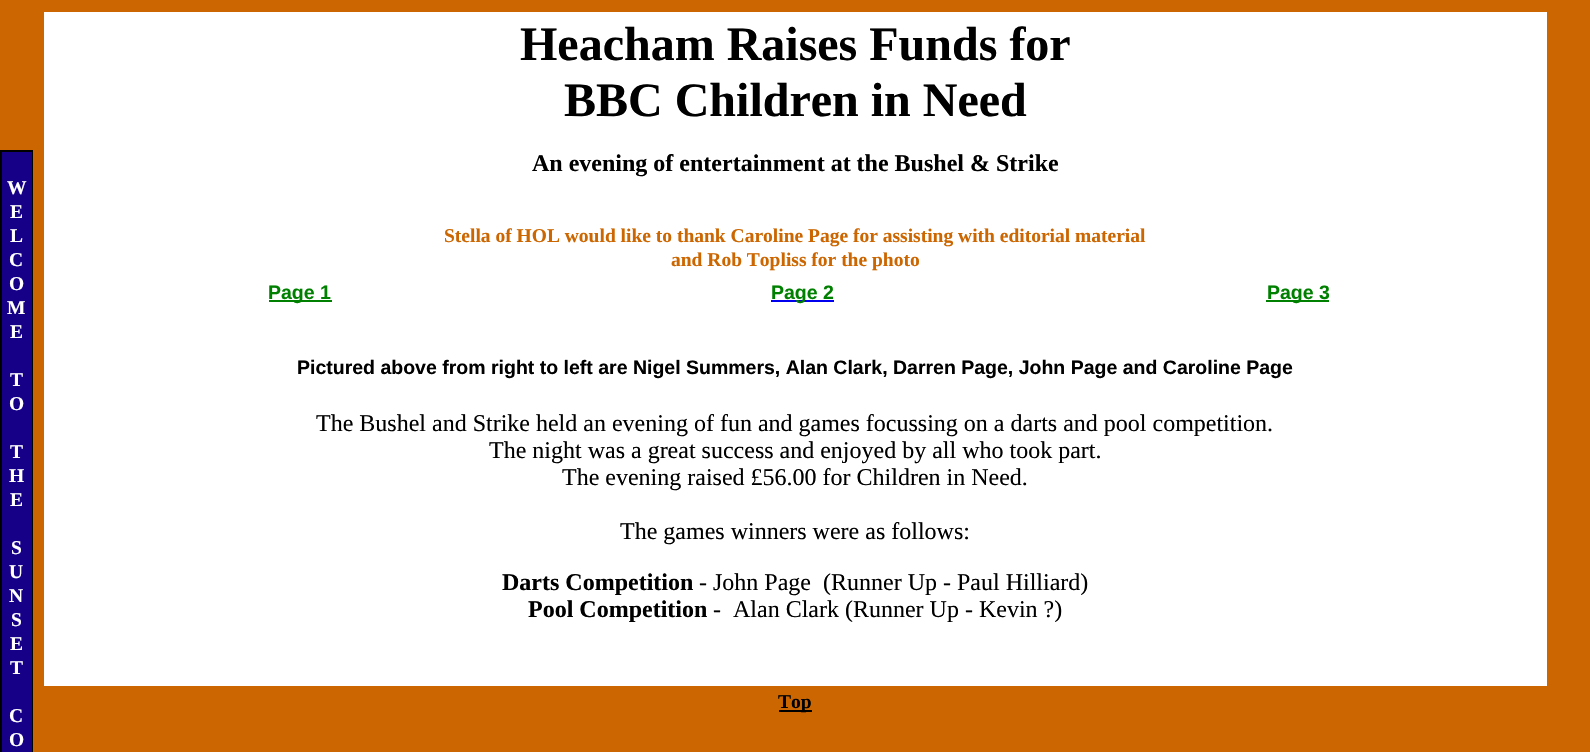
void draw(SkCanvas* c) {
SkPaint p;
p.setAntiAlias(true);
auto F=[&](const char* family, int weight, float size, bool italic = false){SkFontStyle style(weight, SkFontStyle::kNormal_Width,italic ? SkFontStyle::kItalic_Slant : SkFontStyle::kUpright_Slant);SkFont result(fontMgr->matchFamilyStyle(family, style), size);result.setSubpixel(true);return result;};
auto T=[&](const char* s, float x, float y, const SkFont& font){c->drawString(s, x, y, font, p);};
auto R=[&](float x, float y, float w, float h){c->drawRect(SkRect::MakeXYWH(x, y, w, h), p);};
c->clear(0xffcc6600);
p.setColor(0xff000000);
R(0,150,33,602);
p.setColor(0xff170088);
R(2,152,30,600);
auto f1 = F("Liberation Serif",700,19.5);
p.setColor(0xffffffff);
T("W",7,194,f1);
T("E",10,218,f1);
T("L",10,242,f1);
T("C",9,266,f1);
T("O",9,290,f1);
T("M",7,314,f1);
T("E",10,338,f1);
T("T",10,386,f1);
T("O",9,410,f1);
T("T",10,458,f1);
T("H",9,482,f1);
T("E",10,506,f1);
T("S",11,554,f1);
T("U",9,578,f1);
T("N",9,602,f1);
T("S",11,626,f1);
T("E",10,650,f1);
T("T",10,674,f1);
T("C",9,722,f1);
T("O",9,746,f1);
R(44,12,1503,674);
auto f2 = F("Liberation Serif",700,48);
p.setColor(0xff000000);
T("Heacham Raises Funds for",520,60,f2);
T("BBC Children in Need",564,116,f2);
auto f3 = F("Liberation Serif",700,24);
T("An evening of entertainment at the Bushel & Strike",532,171,f3);
p.setColor(0xffcc6600);
T("Stella of HOL would like to thank Caroline Page for assisting with editorial material",444,242,f1);
T("and Rob Topliss for the photo",671,266,f1);
p.setColor(0xff008000);
R(269,300,63,2);
auto f4 = F("Liberation Sans",700,19.5);
T("Page 1",268,299,f4);
p.setColor(0xff0000ee);
R(771,300,63,2);
p.setColor(0xff008000);
T("Page 2",771,299,f4);
R(1266,300,63,2);
T("Page 3",1267,299,f4);
p.setColor(0xff000000);
T("Pictured above from right to left are Nigel Summers, Alan Clark, Darren Page, John Page and Caroline Page",297,374,f4);
auto f5 = F("Liberation Serif",400,24);
T("The Bushel and Strike held an evening of fun and games focussing on a darts and pool competition.",316,431,f5);
T("The night was a great success and enjoyed by all who took part.",489,458,f5);
T("The evening raised £56.00 for Children in Need.",562,485,f5);
T("The games winners were as follows:",620,539,f5);
T("Darts Competition",502,590,f3);
T("- John Page",699,590,f5);
T("(Runner Up - Paul Hilliard)",823,590,f5);
T("Pool Competition",528,617,f3);
T("-  Alan Clark (Runner Up - Kevin ?)",713,617,f5);
R(779,710,33,2);
T("Top",778,708,f1);
}
